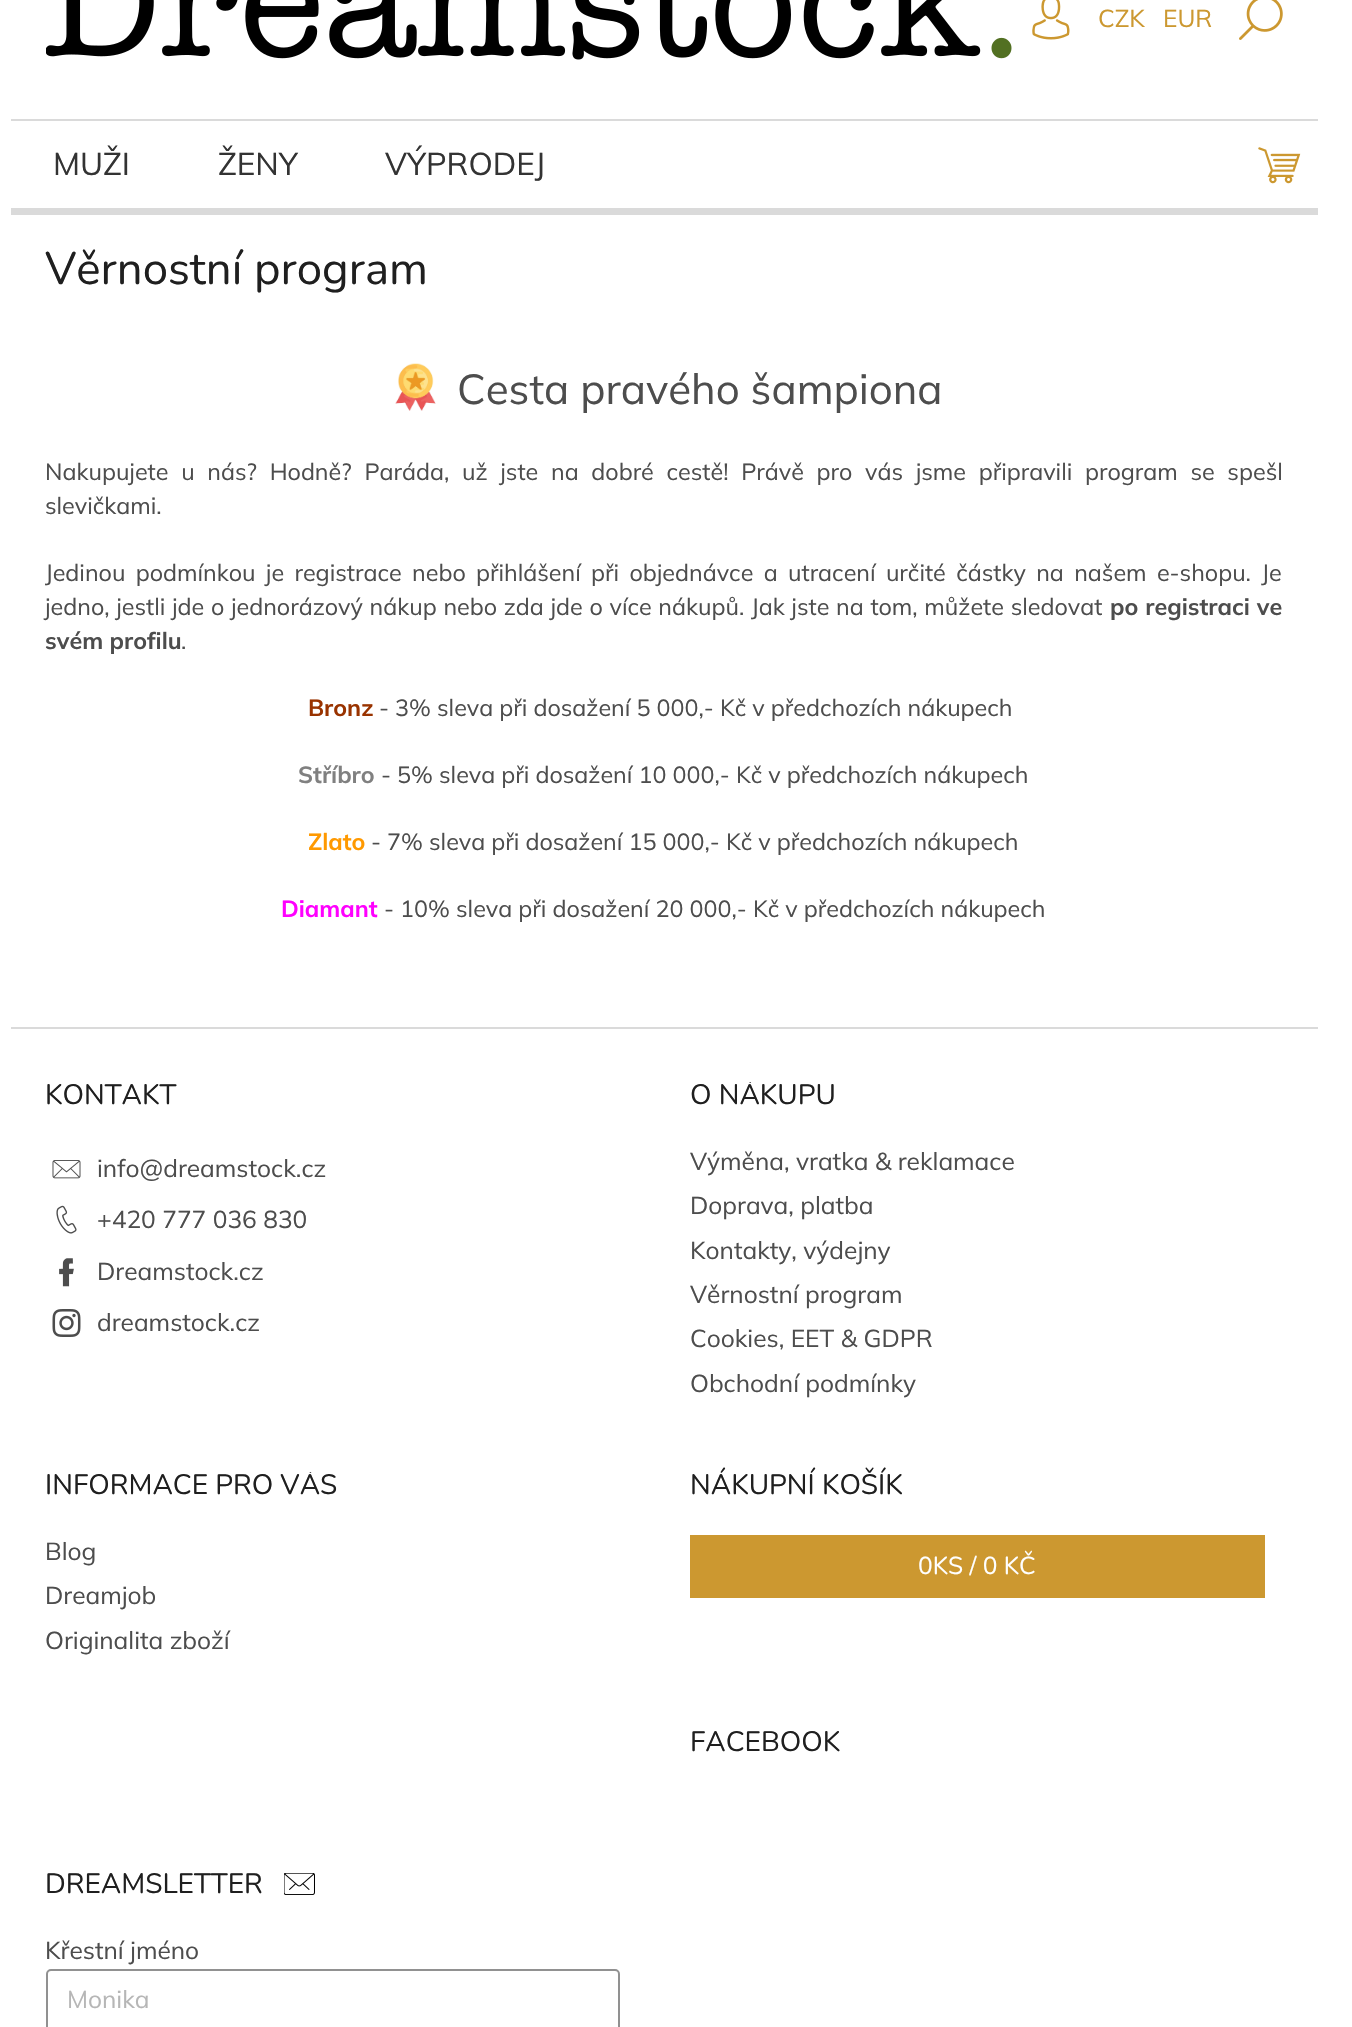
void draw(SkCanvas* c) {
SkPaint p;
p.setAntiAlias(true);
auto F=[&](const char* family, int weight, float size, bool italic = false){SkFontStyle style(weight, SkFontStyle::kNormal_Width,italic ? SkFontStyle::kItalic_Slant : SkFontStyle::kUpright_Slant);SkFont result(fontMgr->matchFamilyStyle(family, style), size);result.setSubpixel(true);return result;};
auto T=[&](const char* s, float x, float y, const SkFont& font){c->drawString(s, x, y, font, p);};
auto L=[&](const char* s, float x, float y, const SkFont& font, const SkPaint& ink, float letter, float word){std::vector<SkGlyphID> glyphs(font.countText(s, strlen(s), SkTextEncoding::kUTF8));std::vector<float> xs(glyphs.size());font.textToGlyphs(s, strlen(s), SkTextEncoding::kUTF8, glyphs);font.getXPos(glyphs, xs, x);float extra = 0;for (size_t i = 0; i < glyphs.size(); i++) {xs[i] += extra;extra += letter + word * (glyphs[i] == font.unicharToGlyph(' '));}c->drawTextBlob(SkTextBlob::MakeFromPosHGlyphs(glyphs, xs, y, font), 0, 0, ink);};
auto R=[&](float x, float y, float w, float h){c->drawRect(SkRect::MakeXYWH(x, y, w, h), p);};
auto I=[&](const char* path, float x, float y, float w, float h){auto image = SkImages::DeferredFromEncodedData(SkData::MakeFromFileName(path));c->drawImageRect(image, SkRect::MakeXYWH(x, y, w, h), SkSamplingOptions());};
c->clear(0xffffffff);
p.setColor(0xffdadada);
R(11,119,1307,2);
I("1.png",46,0,966,60);
I("2.png",1032,0,38,40);
auto f1 = F("Mulish",400,24.5);
p.setColor(0xffcc9830);
T("CZK",1098,27,f1);
T("EUR",1163,27,f1);
I("3.png",1239,0,44,40);
auto f2 = F("Mulish",400,31.5);
p.setColor(0xff333333);
T("MUŽI",53,175,f2);
T("ŽENY",218,175,f2);
T("VÝPRODEJ",385,175,f2);
I("4.png",1258,147,43,37);
p.setColor(0xffdadada);
R(11,208,1307,7);
auto f3 = F("Nunito",400,45.5);
p.setColor(0xff1f1f1f);
T("Věrnostní program",45,284,f3);
I("5.png",395,363,41,48);
auto f4 = F("Mulish",400,42);
p.setColor(0xff4d4d4d);
T("Cesta pravého šampiona",457,404,f4);
auto f5 = F("Mulish",400,23.33);
L("Nakupujete u nás? Hodně? Paráda, už jste na dobré cestě! Právě pro vás jsme připravili program se spešl",45,480,f5,p,0,6.6);
T("slevičkami.",45,514,f5);
L("Jedinou podmínkou je registrace nebo přihlášení při objednávce a utracení určité částky na našem e-shopu. Je",45,581,f5,p,0,4.25);
L("jedno, jestli jde o jednorázový nákup nebo zda jde o více nákupů. Jak jste na tom, můžete sledovat",45,615,f5,p,0,.6);
auto f6 = F("Mulish",700,23.33);
L("po registraci ve",1110,615,f6,p,0,.6);
T("svém profilu",45,649,f6);
T(".",181,649,f5);
p.setColor(0xff993300);
T("Bronz",308,716,f6);
p.setColor(0xff4d4d4d);
T("- 3% sleva při dosažení 5 000,- Kč v předchozích nákupech",379,716,f5);
p.setColor(0xff808080);
T("Stříbro",298,783,f6);
p.setColor(0xff4d4d4d);
T("- 5% sleva při dosažení 10 000,- Kč v předchozích nákupech",381,783,f5);
p.setColor(0xffff9900);
T("Zlato",308,850,f6);
p.setColor(0xff4d4d4d);
T("- 7% sleva při dosažení 15 000,- Kč v předchozích nákupech",371,850,f5);
p.setColor(0xffff00ff);
T("Diamant",281,917,f6);
p.setColor(0xff4d4d4d);
T("- 10% sleva při dosažení 20 000,- Kč v předchozích nákupech",384,917,f5);
p.setColor(0xffdadada);
R(11,1027,1307,2);
auto f7 = F("Nunito",400,28);
p.setColor(0xff1f1f1f);
T("KONTAKT",45,1104,f7);
I("6.png",52,1160,29,19);
p.setColor(0xff4d4d4d);
T("info@dreamstock.cz",97,1177,f1);
I("7.png",56,1205,21,29);
T("+420 777 036 830",97,1228,f1);
I("8.png",59,1258,15,29);
T("Dreamstock.cz",97,1280,f1);
I("9.png",52,1309,29,28);
T("dreamstock.cz",97,1331,f1);
c->save();
c->clipRect(SkRect::MakeXYWH(690,1082,575,355));
p.setColor(0xff1f1f1f);
T("O NÁKUPU",690,1104,f7);
c->restore();
p.setColor(0xff4d4d4d);
T("Výměna, vratka & reklamace",690,1170,f1);
T("Doprava, platba",690,1214,f1);
T("Kontakty, výdejny",690,1259,f1);
T("Věrnostní program",690,1303,f1);
T("Cookies, EET & GDPR",690,1347,f1);
T("Obchodní podmínky",690,1392,f1);
c->save();
c->clipRect(SkRect::MakeXYWH(46,1472,574,220));
p.setColor(0xff1f1f1f);
T("INFORMACE PRO VÁS",45,1494,f7);
c->restore();
p.setColor(0xff4d4d4d);
T("Blog",45,1560,f1);
T("Dreamjob",45,1604,f1);
T("Originalita zboží",45,1649,f1);
p.setColor(0xff1f1f1f);
T("NÁKUPNÍ KOŠÍK",690,1494,f7);
p.setColor(0xffcc9830);
R(690,1535,575,63);
auto f8 = F("Nunito",400,24.5);
p.setColor(0xffffffff);
T("0KS / 0 KČ",918,1574,f8);
p.setColor(0xff1f1f1f);
T("FACEBOOK",690,1751,f7);
T("DREAMSLETTER",45,1893,f7);
I("10.png",284,1873,31,22);
p.setColor(0xff4d4d4d);
T("Křestní jméno",45,1959,f1);
p.setStroke(true);
p.setStrokeWidth(2);
p.setColor(0xff919191);
c->drawRoundRect(SkRect::MakeXYWH(47,1970,572,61),4,4,p);
p.setStroke(false);
p.setColor(0xffb6b6b6);
T("Monika",67,2008,f1);
}
